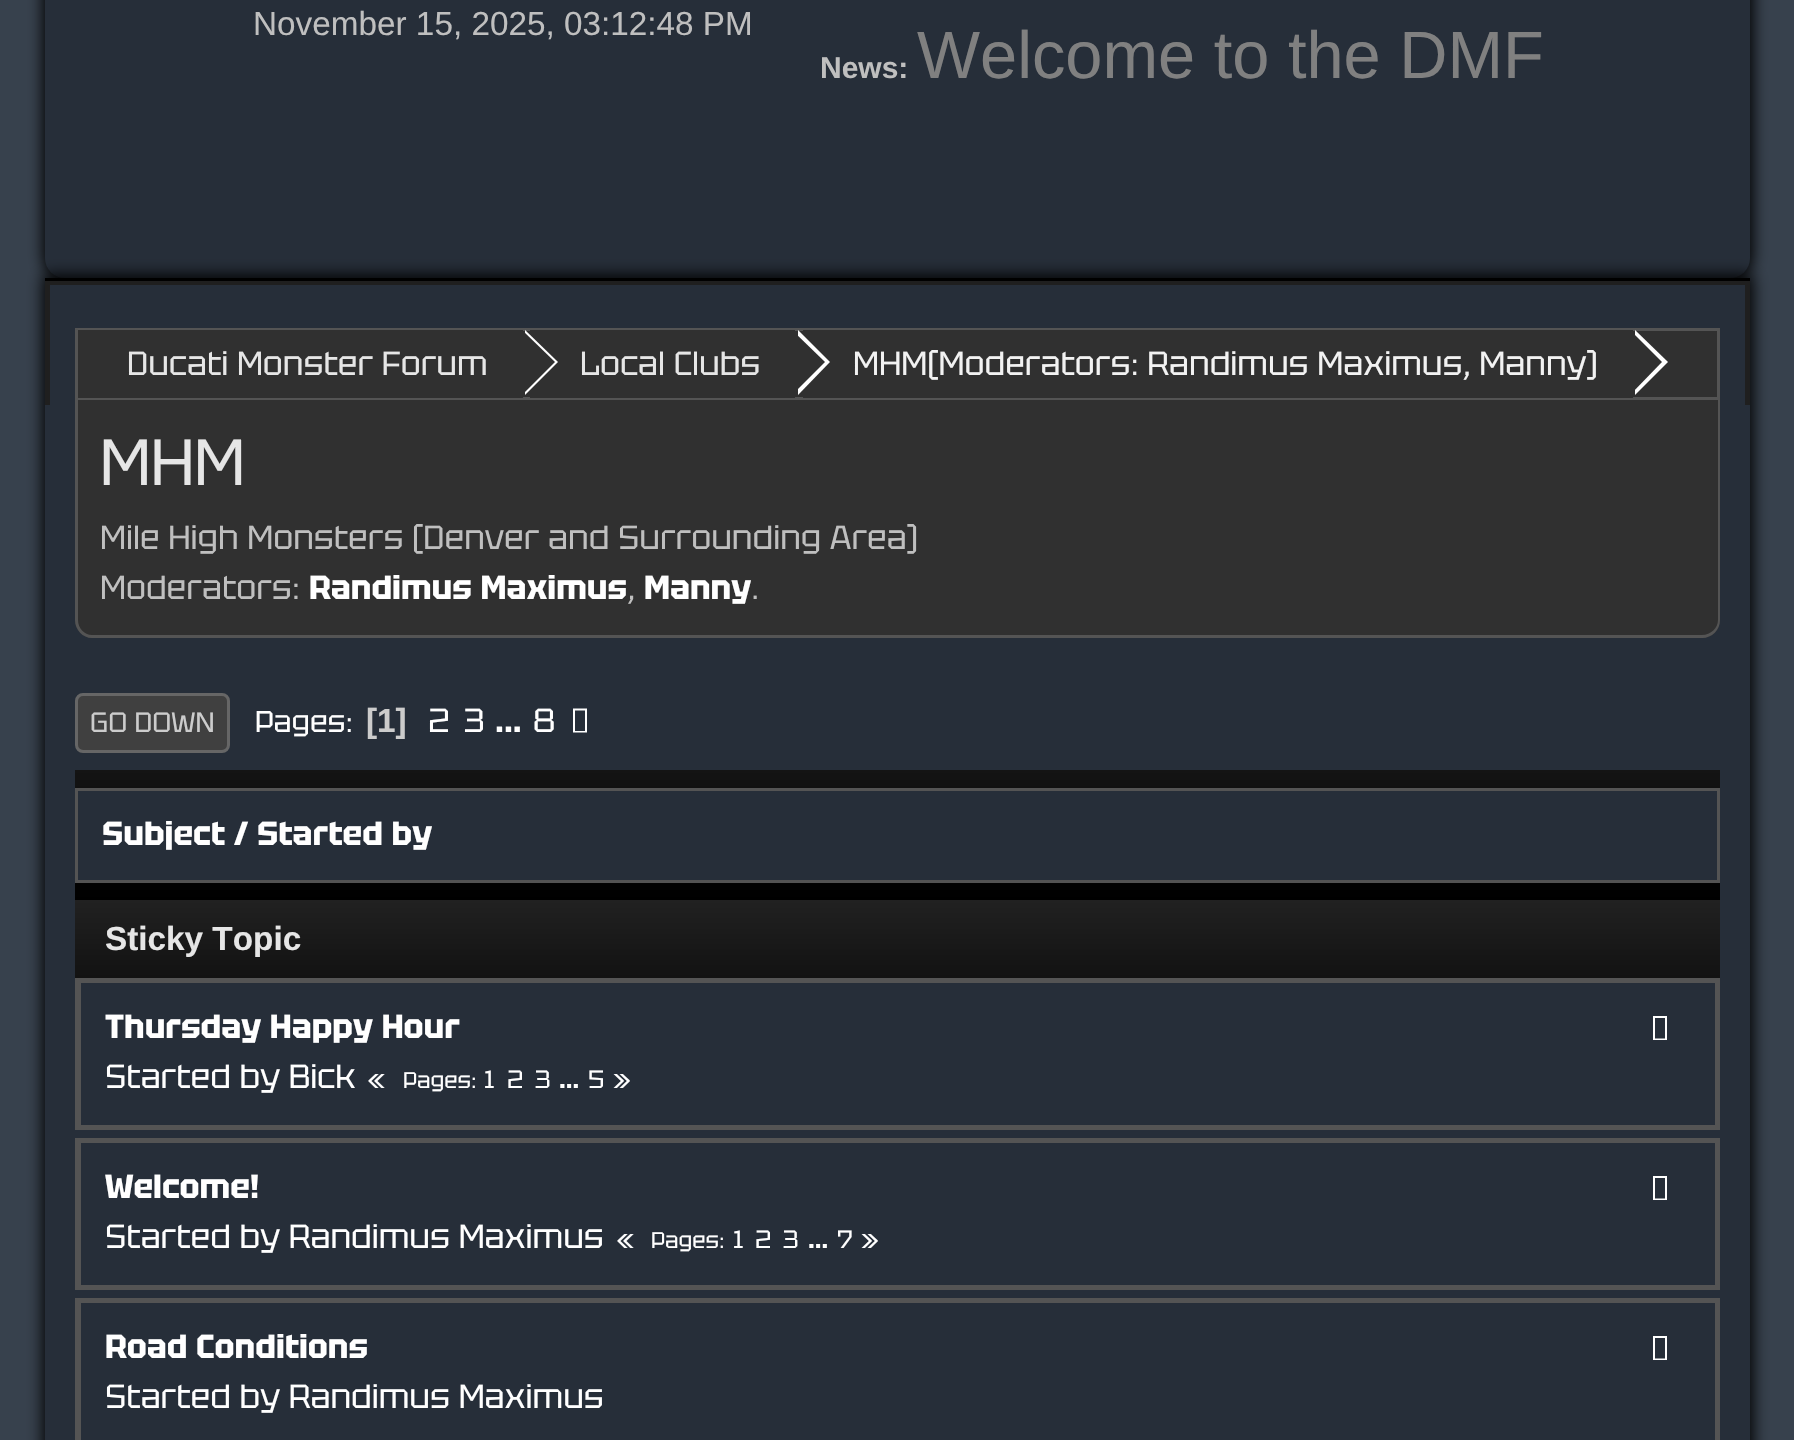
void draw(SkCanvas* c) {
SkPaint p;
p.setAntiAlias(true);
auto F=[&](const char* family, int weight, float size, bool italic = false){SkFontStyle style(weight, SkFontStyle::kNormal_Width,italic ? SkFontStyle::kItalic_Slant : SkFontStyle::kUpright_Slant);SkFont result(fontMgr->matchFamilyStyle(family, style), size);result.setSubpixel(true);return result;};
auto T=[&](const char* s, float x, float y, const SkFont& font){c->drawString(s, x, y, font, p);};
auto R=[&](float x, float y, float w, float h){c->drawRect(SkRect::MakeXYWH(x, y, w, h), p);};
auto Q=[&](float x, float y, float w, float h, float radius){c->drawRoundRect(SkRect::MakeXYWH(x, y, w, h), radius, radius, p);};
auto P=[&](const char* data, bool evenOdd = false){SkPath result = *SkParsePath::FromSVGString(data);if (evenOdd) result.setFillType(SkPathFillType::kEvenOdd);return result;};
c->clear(0xff37414d);
p.setColor(0xff000000);
p.setMaskFilter(SkMaskFilter::MakeBlur(kNormal_SkBlurStyle, 7.5));
c->drawRoundRect(SkRect::MakeXYWH(43,-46,1710,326),23,23,p);
p.setMaskFilter(nullptr);
p.setColor(0xff262e39);
Q(45,-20,1705,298,20);
auto f1 = F("Liberation Sans",400,33.3);
p.setColor(0xffbfbfbf);
T("November 15, 2025, 03:12:48 PM",253,35,f1);
auto f2 = F("Liberation Sans",700,30);
T("News:",820,78,f2);
auto f3 = F("Liberation Sans",400,66.75);
p.setColor(0xff808080);
T("Welcome to the DMF",917,78,f3);
p.setColor(0xff000000);
p.setMaskFilter(SkMaskFilter::MakeBlur(kNormal_SkBlurStyle, 7.5));
c->drawRect(SkRect::MakeXYWH(43,275,1710,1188),p);
p.setMaskFilter(nullptr);
p.setColor(0xff1f1f1f);
R(45,281,1705,124);
p.setColor(0xff000000);
R(45,278,1705,3);
p.setColor(0xff262e39);
R(50,285,1695,120);
p.setColor(0xff303030);
R(523,331,1194,66);
p.setStroke(true);
p.setStrokeWidth(3);
p.setColor(0xff545454);
c->drawRect(SkRect::MakeXYWH(76.5,329.5,1642,69),p);
p.setStroke(false);
p.setColor(0xff303030);
R(78,330,445,68);
R(530,330,265,68);
p.setColor(0xffffffff);
c->drawPath(P("M525 395v-65l33 32z"),p);
p.setColor(0xff303030);
c->drawPath(P("M522 395v-65l33 32z"),p);
auto f4 = F("Tektur",400,33.3);
p.setColor(0xffe6e6e6);
T("Ducati Monster Forum",127,375,f4);
p.setColor(0xff303030);
R(803,330,830,68);
p.setColor(0xffffffff);
c->drawPath(P("M798 395v-65l32 32z"),p);
p.setColor(0xff303030);
c->drawPath(P("M792 395v-65l33 32z"),p);
p.setColor(0xffe6e6e6);
T("Local Clubs",580,375,f4);
p.setColor(0xffffffff);
c->drawPath(P("M1635 395v-65l33 32z"),p);
p.setColor(0xff303030);
c->drawPath(P("M1630 395v-65l32 32z"),p);
p.setColor(0xfff2f2f2);
T("MHM(Moderators: Randimus Maximus, Manny)",853,375,f4);
p.setColor(0xff262e39);
R(45,405,1705,1035);
p.setColor(0xff303030);
c->drawPath(P("M75 400h1645v220c0 10-8 18-18 18h-1609c-10 0-18-8-18-18z"),p);
p.setColor(0xff545454);
c->drawPath(P("M75 400h1645v220c0 10-8 18-18 18h-1610c-9 0-17-8-17-18zm3 0h1640v220c0 8-7 15-16 15h-1610c-8 0-14-7-14-15z",true),p);
auto f5 = F("Tektur",400,65);
p.setColor(0xffe6e6e6);
T("MHM",100,485,f5);
p.setColor(0xffbfbfbf);
T("Mile High Monsters (Denver and Surrounding Area)",100,549,f4);
T("Moderators:",100,599,f4);
auto f6 = F("Tektur",700,33.3);
p.setColor(0xffffffff);
T("Randimus Maximus",309,599,f6);
p.setColor(0xffbfbfbf);
T(",",627,599,f4);
p.setColor(0xffffffff);
T("Manny",644,599,f6);
p.setColor(0xffbfbfbf);
T(".",751,599,f4);
p.setColor(0xff404040);
c->drawRoundRect(SkRect::MakeXYWH(76.5,694.5,152,57),6.5,6.5,p);
p.setStroke(true);
p.setColor(0xff666666);
c->drawRoundRect(SkRect::MakeXYWH(76.5,694.5,152,57),6.5,6.5,p);
auto f7 = F("Tektur",400,28);
p.setStroke(false);
p.setColor(0xffcccccc);
T("GO DOWN",90,732,f7);
auto f8 = F("Tektur",400,30);
p.setColor(0xffffffff);
T("Pages:",255,732,f8);
auto f9 = F("Liberation Sans",700,33.3);
p.setColor(0xffcccccc);
T("[1]",366,732,f9);
p.setColor(0xffffffff);
T("2",428,732,f4);
T("3",464,732,f4);
T("...",495,732,f6);
T("8",533,732,f4);
c->drawPath(P("M573 732.5v-24h14v24zm2-1.5h10v-20.5h-10z"),p);
{
const SkColor colors[] = {0xff141414,0xff000000};
const float stops[] = {0,1};
const SkPoint ends[] = {{898,770}, {898,900}};
p.setShader(SkGradientShader::MakeLinear(ends, colors, stops, 2, SkTileMode::kClamp));
p.setAlpha(255);
}
R(75,770,1645,130);
p.setShader(nullptr);
p.setColor(0xff262e39);
c->drawRect(SkRect::MakeXYWH(76.5,789.5,1642,92),p);
p.setStroke(true);
p.setColor(0xff545454);
c->drawRect(SkRect::MakeXYWH(76.5,789.5,1642,92),p);
p.setStroke(false);
p.setColor(0xffffffff);
T("Subject / Started by",102,845,f6);
{
const SkColor colors[] = {0xff212121,0xff121212};
const float stops[] = {0,1};
const SkPoint ends[] = {{898,900}, {898,978}};
p.setShader(SkGradientShader::MakeLinear(ends, colors, stops, 2, SkTileMode::kClamp));
p.setAlpha(255);
}
R(75,900,1645,78);
p.setShader(nullptr);
p.setColor(0xffe6e6e6);
T("Sticky Topic",105,950,f9);
p.setStroke(true);
p.setColor(0xff545454);
c->drawRect(SkRect::MakeXYWH(76.5,979.5,1642,149),p);
c->drawRect(SkRect::MakeXYWH(79.5,981.5,1637,145),p);
p.setStroke(false);
p.setColor(0xffffffff);
T("Thursday Happy Hour",105,1038,f6);
c->drawPath(P("M1653 1040v-24h14v24zm2-1.5h10v-20.5h-10z"),p);
T("Started by Bick",105,1088,f4);
auto f10 = F("Tektur",400,25);
T("«",368,1088,f10);
auto f11 = F("Tektur",400,22.5);
T("Pages:",403,1088,f11);
T("1",484,1088,f10);
T("2",507,1088,f10);
T("3",535,1088,f10);
auto f12 = F("Tektur",700,25);
T("...",559,1088,f12);
T("5",588,1088,f10);
T("»",613,1088,f10);
p.setStroke(true);
p.setColor(0xff545454);
c->drawRect(SkRect::MakeXYWH(76.5,1139.5,1642,149),p);
c->drawRect(SkRect::MakeXYWH(79.5,1141.5,1637,145),p);
p.setStroke(false);
p.setColor(0xffffffff);
T("Welcome!",105,1198,f6);
c->drawPath(P("M1653 1200v-24h14v24zm2-1.5h10v-20.5h-10z"),p);
T("Started by Randimus Maximus",105,1248,f4);
T("«",617,1248,f10);
T("Pages:",651,1248,f11);
T("1",733,1248,f10);
T("2",755,1248,f10);
T("3",783,1248,f10);
T("...",808,1248,f12);
T("7",837,1248,f10);
T("»",861,1248,f10);
p.setStroke(true);
p.setColor(0xff545454);
c->drawRect(SkRect::MakeXYWH(76.5,1299.5,1642,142),p);
c->drawRect(SkRect::MakeXYWH(79.5,1301.5,1637,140),p);
p.setStroke(false);
p.setColor(0xffffffff);
T("Road Conditions",105,1358,f6);
c->drawPath(P("M1653 1360v-24h14v24zm2-1.5h10v-20.5h-10z"),p);
T("Started by Randimus Maximus",105,1408,f4);
}
